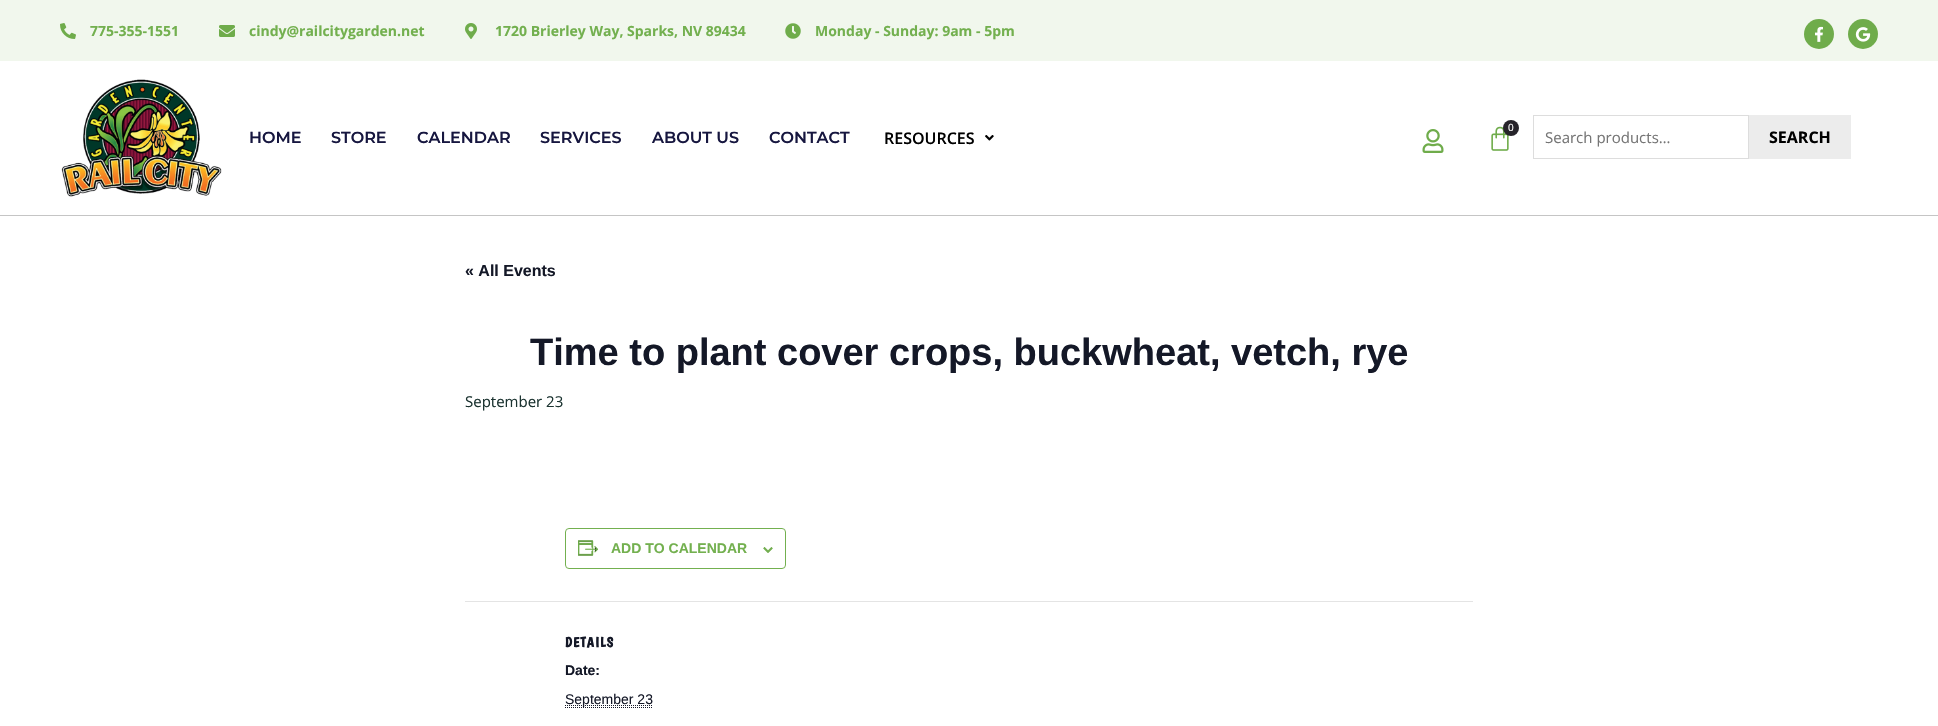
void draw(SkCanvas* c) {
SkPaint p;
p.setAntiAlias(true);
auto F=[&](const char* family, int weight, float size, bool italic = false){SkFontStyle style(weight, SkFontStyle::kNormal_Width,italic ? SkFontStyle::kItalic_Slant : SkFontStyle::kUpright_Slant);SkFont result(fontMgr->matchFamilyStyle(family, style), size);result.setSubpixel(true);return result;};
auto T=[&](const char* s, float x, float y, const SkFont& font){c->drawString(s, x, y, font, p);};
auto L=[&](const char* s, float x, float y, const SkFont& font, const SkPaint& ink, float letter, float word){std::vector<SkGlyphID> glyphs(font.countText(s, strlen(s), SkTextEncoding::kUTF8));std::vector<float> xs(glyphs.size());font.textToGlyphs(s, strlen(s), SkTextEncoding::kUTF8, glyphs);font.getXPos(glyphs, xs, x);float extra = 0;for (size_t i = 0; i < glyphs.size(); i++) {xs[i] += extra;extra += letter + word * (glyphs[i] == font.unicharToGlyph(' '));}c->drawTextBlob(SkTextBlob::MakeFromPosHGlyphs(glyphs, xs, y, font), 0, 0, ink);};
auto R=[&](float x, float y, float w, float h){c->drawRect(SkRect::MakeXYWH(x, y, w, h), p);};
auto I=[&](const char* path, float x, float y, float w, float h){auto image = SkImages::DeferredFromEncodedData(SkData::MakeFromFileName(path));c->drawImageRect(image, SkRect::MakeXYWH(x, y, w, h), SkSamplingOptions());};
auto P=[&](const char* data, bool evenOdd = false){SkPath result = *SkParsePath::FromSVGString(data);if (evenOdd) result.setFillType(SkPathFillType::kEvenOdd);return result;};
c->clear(0xffffffff);
p.setColor(0xfff1f7ed);
R(0,0,1938,61);
I("1.png",60,23,16,16);
auto f1 = F("Open Sans",700,14);
p.setColor(0xff73b04f);
T("775-355-1551",90,36,f1);
I("2.png",219,25,16,12);
T("cindy@railcitygarden.net",249,36,f1);
I("3.png",465,23,12,16);
T("1720 Brierley Way, Sparks, NV 89434",495,36,f1);
I("4.png",785,23,16,16);
T("Monday - Sunday: 9am - 5pm",815,36,f1);
p.setColor(0xff6fac4b);
c->drawCircle(1819,34,15,p);
I("5.png",1815,26,8,16);
c->drawCircle(1863,34,15,p);
I("6.png",1855,27,16,15);
p.setColor(0xffc5c5c5);
R(0,215,1938,1);
I("7.png",61,79,161,118);
auto f2 = F("Montserrat",600,16);
p.setColor(0xff16163f);
T("HOME",249,143,f2);
T("STORE",331,143,f2);
T("CALENDAR",417,143,f2);
T("SERVICES",540,143,f2);
T("ABOUT US",652,143,f2);
T("CONTACT",769,143,f2);
auto f3 = F("Open Sans",600,16);
p.setColor(0xff000000);
T("RESOURCES",884,144,f3);
I("8.png",985,135,9,6);
I("9.png",1491,126,18,25);
p.setColor(0xff26232a);
c->drawCircle(1511,128,8,p);
auto f4 = F("Open Sans",400,10);
p.setColor(0xffffffff);
T("0",1508,131,f4);
I("10.png",1422,129,22,24);
p.setStroke(true);
p.setStrokeWidth(1);
p.setColor(0xffdddddd);
c->drawRect(SkRect::MakeXYWH(1533.5,115.5,215,43),p);
auto f5 = F("Open Sans",400,15);
p.setStroke(false);
p.setColor(0xff757575);
T("Search products…",1545,143,f5);
p.setColor(0xffececec);
R(1749,115,102,44);
auto f6 = F("Open Sans",700,16);
p.setColor(0xff000000);
T("SEARCH",1769,143,f6);
auto f7 = F("Liberation Sans",700,16);
p.setColor(0xff141827);
T("« All Events",465,276,f7);
auto f8 = F("Liberation Sans",700,38);
T("Time to plant cover crops, buckwheat, vetch, rye",530,365,f8);
p.setColor(0xff1b3330);
T("September 23",465,407,f5);
p.setStroke(true);
p.setColor(0xff73b04f);
c->drawRoundRect(SkRect::MakeXYWH(565.5,528.5,220,40),3.5,3.5,p);
I("11.png",578,540,21,16);
auto f9 = F("Liberation Sans",700,14);
p.setStroke(false);
T("ADD TO CALENDAR",611,553,f9);
I("12.png",763,547,10,6);
p.setColor(0xffe4e4e4);
R(465,601,1008,1);
auto f10 = F("Boogaloo",700,14);
p.setColor(0xff141827);
L("DETAILS",565,647,f10,p,1,0);
T("Date:",565,675,f9);
p.setStroke(true);
p.setPathEffect(SkDashPathEffect::Make({{1,1}}, 0));
c->drawPath(P("M565 705.5h88"),p);
p.setPathEffect(nullptr);
auto f11 = F("Liberation Sans",400,14);
p.setStroke(false);
T("September 23",565,704,f11);
p.setStroke(true);
p.setPathEffect(SkDashPathEffect::Make({{1,1}}, 0));
c->drawPath(P("M565 707.5h88"),p);
p.setPathEffect(nullptr);
}
